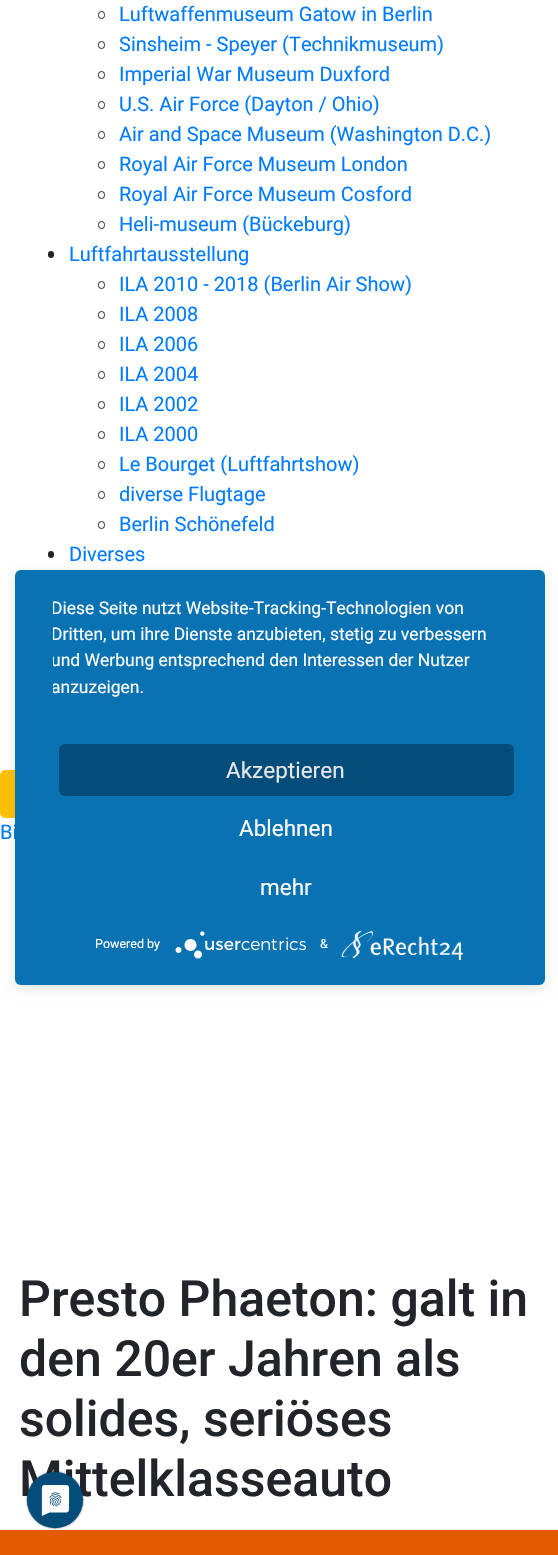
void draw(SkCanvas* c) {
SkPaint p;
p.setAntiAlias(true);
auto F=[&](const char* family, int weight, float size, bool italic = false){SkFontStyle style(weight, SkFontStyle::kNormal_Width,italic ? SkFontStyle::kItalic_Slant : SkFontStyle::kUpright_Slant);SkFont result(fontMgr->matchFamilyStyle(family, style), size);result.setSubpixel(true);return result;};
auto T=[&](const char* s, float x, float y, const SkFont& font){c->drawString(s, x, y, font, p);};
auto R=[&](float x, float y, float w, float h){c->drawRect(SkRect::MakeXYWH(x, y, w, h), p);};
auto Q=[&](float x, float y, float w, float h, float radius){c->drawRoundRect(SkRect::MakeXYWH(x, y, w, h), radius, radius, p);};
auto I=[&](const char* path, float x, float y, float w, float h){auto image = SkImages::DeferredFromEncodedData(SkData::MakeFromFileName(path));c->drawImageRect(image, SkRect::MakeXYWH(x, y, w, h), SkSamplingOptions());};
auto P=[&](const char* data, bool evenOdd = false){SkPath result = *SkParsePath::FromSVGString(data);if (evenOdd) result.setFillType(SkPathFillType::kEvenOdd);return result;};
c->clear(0xffffffff);
p.setStroke(true);
p.setStrokeWidth(1);
p.setColor(0xff212529);
c->drawRoundRect(SkRect::MakeXYWH(98.5,11.5,6,7),3,3,p);
auto f1 = F("Roboto",400,20);
p.setStroke(false);
p.setColor(0xff007bff);
T("Luftwaffenmuseum Gatow in Berlin",119,21,f1);
p.setStroke(true);
p.setColor(0xff212529);
c->drawRoundRect(SkRect::MakeXYWH(98.5,41.5,6,7),3,3,p);
p.setStroke(false);
p.setColor(0xff007bff);
T("Sinsheim - Speyer (Technikmuseum)",119,51,f1);
p.setStroke(true);
p.setColor(0xff212529);
c->drawRoundRect(SkRect::MakeXYWH(98.5,71.5,6,7),3,3,p);
p.setStroke(false);
p.setColor(0xff007bff);
T("Imperial War Museum Duxford",119,81,f1);
p.setStroke(true);
p.setColor(0xff212529);
c->drawRoundRect(SkRect::MakeXYWH(98.5,101.5,6,7),3,3,p);
p.setStroke(false);
p.setColor(0xff007bff);
T("U.S. Air Force (Dayton / Ohio)",119,111,f1);
p.setStroke(true);
p.setColor(0xff212529);
c->drawRoundRect(SkRect::MakeXYWH(98.5,131.5,6,7),3,3,p);
p.setStroke(false);
p.setColor(0xff007bff);
T("Air and Space Museum (Washington D.C.)",119,141,f1);
p.setStroke(true);
p.setColor(0xff212529);
c->drawRoundRect(SkRect::MakeXYWH(98.5,161.5,6,7),3,3,p);
p.setStroke(false);
p.setColor(0xff007bff);
T("Royal Air Force Museum London",119,171,f1);
p.setStroke(true);
p.setColor(0xff212529);
c->drawRoundRect(SkRect::MakeXYWH(98.5,191.5,6,7),3,3,p);
p.setStroke(false);
p.setColor(0xff007bff);
T("Royal Air Force Museum Cosford",119,201,f1);
p.setStroke(true);
p.setColor(0xff212529);
c->drawRoundRect(SkRect::MakeXYWH(98.5,221.5,6,7),3,3,p);
p.setStroke(false);
p.setColor(0xff007bff);
T("Heli-museum (Bückeburg)",119,231,f1);
p.setColor(0xff212529);
Q(48,251,6,7,3);
p.setColor(0xff007bff);
T("Luftfahrtausstellung",69,261,f1);
p.setStroke(true);
p.setColor(0xff212529);
c->drawRoundRect(SkRect::MakeXYWH(98.5,281.5,6,7),3,3,p);
p.setStroke(false);
p.setColor(0xff007bff);
T("ILA 2010 - 2018 (Berlin Air Show)",119,291,f1);
p.setStroke(true);
p.setColor(0xff212529);
c->drawRoundRect(SkRect::MakeXYWH(98.5,311.5,6,7),3,3,p);
p.setStroke(false);
p.setColor(0xff007bff);
T("ILA 2008",119,321,f1);
p.setStroke(true);
p.setColor(0xff212529);
c->drawRoundRect(SkRect::MakeXYWH(98.5,341.5,6,7),3,3,p);
p.setStroke(false);
p.setColor(0xff007bff);
T("ILA 2006",119,351,f1);
p.setStroke(true);
p.setColor(0xff212529);
c->drawRoundRect(SkRect::MakeXYWH(98.5,371.5,6,7),3,3,p);
p.setStroke(false);
p.setColor(0xff007bff);
T("ILA 2004",119,381,f1);
p.setStroke(true);
p.setColor(0xff212529);
c->drawRoundRect(SkRect::MakeXYWH(98.5,401.5,6,7),3,3,p);
p.setStroke(false);
p.setColor(0xff007bff);
T("ILA 2002",119,411,f1);
p.setStroke(true);
p.setColor(0xff212529);
c->drawRoundRect(SkRect::MakeXYWH(98.5,431.5,6,7),3,3,p);
p.setStroke(false);
p.setColor(0xff007bff);
T("ILA 2000",119,441,f1);
p.setStroke(true);
p.setColor(0xff212529);
c->drawRoundRect(SkRect::MakeXYWH(98.5,461.5,6,7),3,3,p);
p.setStroke(false);
p.setColor(0xff007bff);
T("Le Bourget (Luftfahrtshow)",119,471,f1);
p.setStroke(true);
p.setColor(0xff212529);
c->drawRoundRect(SkRect::MakeXYWH(98.5,491.5,6,7),3,3,p);
p.setStroke(false);
p.setColor(0xff007bff);
T("diverse Flugtage",119,501,f1);
p.setStroke(true);
p.setColor(0xff212529);
c->drawRoundRect(SkRect::MakeXYWH(98.5,521.5,6,7),3,3,p);
p.setStroke(false);
p.setColor(0xff007bff);
T("Berlin Schönefeld",119,531,f1);
p.setColor(0xff212529);
Q(48,551,6,7,3);
p.setColor(0xff007bff);
T("Diverses",69,561,f1);
p.setColor(0xffffc107);
c->drawRoundRect(SkRect::MakeXYWH(.5,770.5,230,47),4.5,4.5,p);
p.setStroke(true);
c->drawRoundRect(SkRect::MakeXYWH(.5,770.5,230,47),4.5,4.5,p);
p.setStroke(false);
p.setColor(0xff007bff);
T("Bi",0,839,f1);
auto f2 = F("Roboto",500,50);
p.setColor(0xff212529);
T("Presto Phaeton: galt in",19,1316,f2);
T("den 20er Jahren als",19,1376,f2);
T("solides, seriöses",19,1436,f2);
T("Mittelklasseauto",19,1496,f2);
p.setColor(0xffe35b00);
R(0,1530,558,25);
p.setColor(0x1a000000);
p.setMaskFilter(SkMaskFilter::MakeBlur(kNormal_SkBlurStyle, 6));
c->drawRoundRect(SkRect::MakeXYWH(15,574,530,415),6,6,p);
p.setMaskFilter(nullptr);
c->save();
c->clipPath(P("M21 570h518c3.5 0 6 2.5 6 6v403c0 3.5-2.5 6-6 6h-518c-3.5 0-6-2.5-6-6v-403c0-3.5 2.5-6 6-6z"),true);
p.setColor(0x4d000000);
p.setMaskFilter(SkMaskFilter::MakeBlur(kNormal_SkBlurStyle, 22.5));
c->drawRect(SkRect::MakeXYWH(15,578,530,415),p);
p.setMaskFilter(nullptr);
c->restore();
p.setColor(0xff0972b3);
Q(15,570,530,415,6);
c->save();
c->clipRect(SkRect::MakeXYWH(53,595,455,130));
auto f3 = F("Roboto",400,17.5);
p.setColor(0xffffffff);
T("Diese Seite nutzt Website-Tracking-Technologien von",51,614,f3);
T("Dritten, um ihre Dienste anzubieten, stetig zu verbessern",51,640,f3);
T("und Werbung entsprechend den Interessen der Nutzer",51,666,f3);
T("anzuzeigen.",51,693,f3);
c->restore();
p.setColor(0xff044d7a);
Q(59,744,455,52,6);
auto f4 = F("Roboto",400,22.5);
p.setColor(0xffe6e6e6);
T("Akzeptieren",226,778,f4);
p.setColor(0xffffffff);
T("Ablehnen",239,836,f4);
T("mehr",260,895,f4);
auto f5 = F("Roboto",400,12.5);
T("Powered by",95,948,f5);
I("1.png",175,931,131,28);
T("&",320,948,f5);
I("2.png",340,930,123,30);
I("3.png",25,1471,60,59);
}
